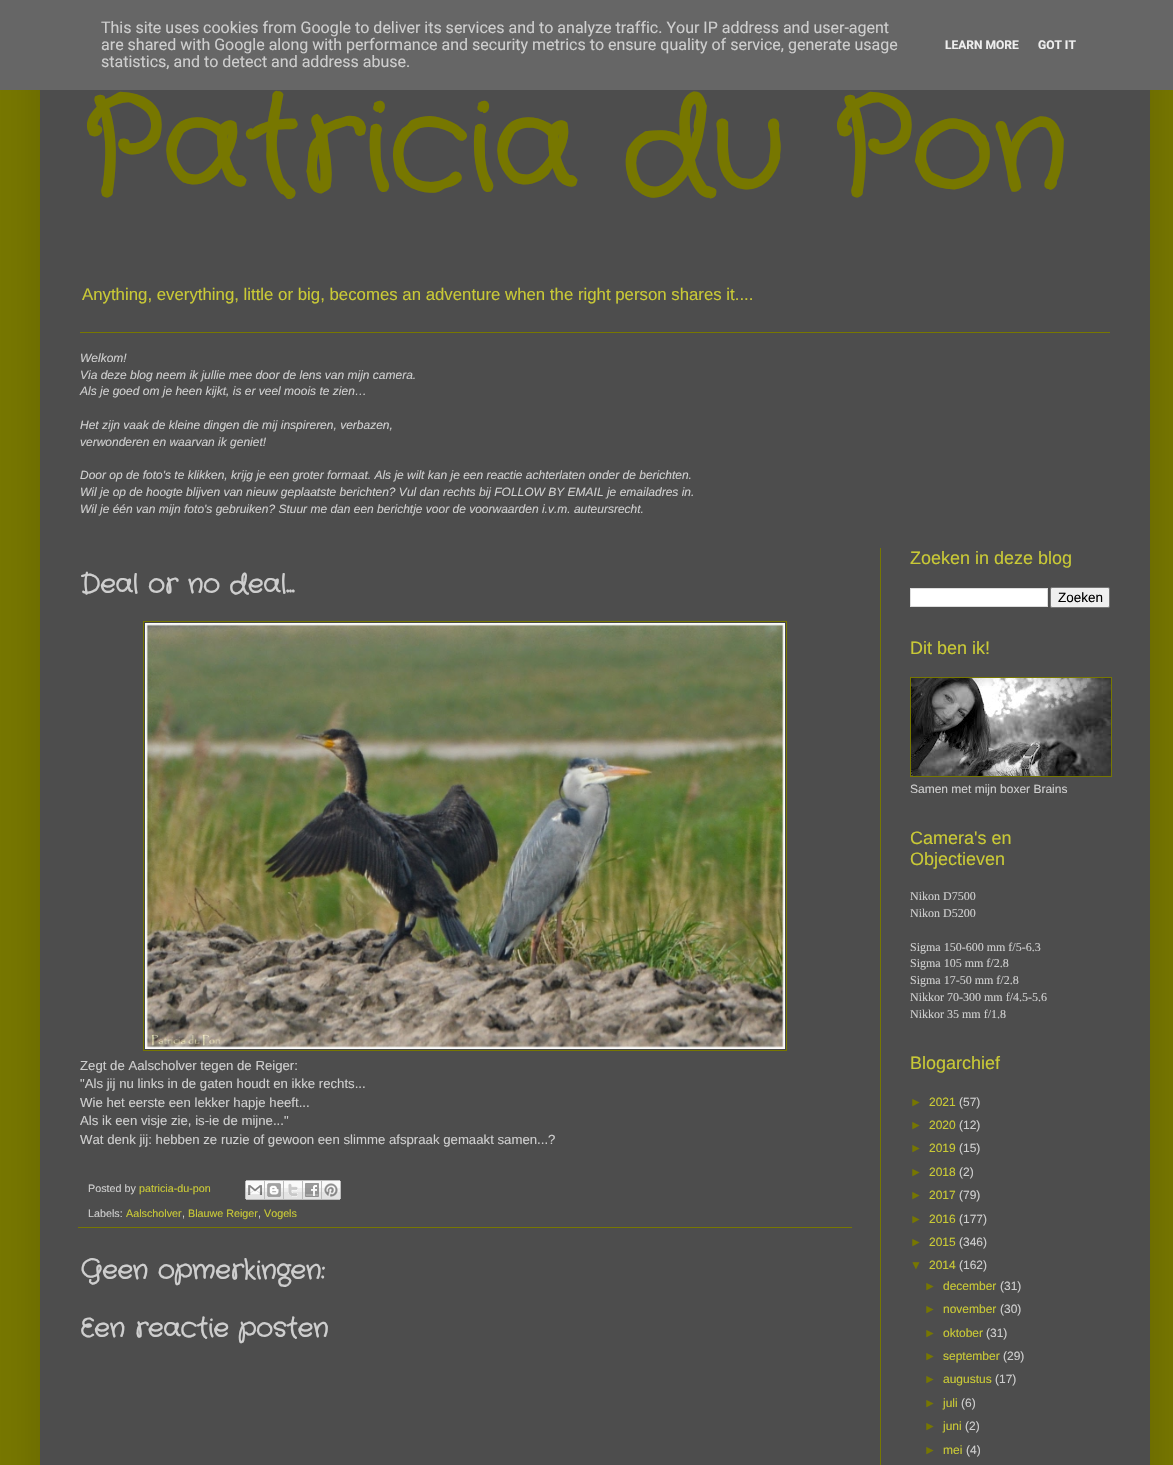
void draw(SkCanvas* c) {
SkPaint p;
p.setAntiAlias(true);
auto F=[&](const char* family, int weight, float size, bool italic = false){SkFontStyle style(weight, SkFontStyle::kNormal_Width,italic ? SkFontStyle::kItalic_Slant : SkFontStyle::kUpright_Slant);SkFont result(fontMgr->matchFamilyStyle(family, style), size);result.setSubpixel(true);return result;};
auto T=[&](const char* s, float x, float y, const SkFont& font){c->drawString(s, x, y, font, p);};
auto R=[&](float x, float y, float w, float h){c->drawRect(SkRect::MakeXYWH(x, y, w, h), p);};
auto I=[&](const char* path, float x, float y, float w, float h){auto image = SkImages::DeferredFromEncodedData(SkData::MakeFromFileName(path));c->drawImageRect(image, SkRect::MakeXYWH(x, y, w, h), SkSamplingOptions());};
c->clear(0xff777700);
p.setColor(0x26000000);
p.setMaskFilter(SkMaskFilter::MakeBlur(kNormal_SkBlurStyle, 20));
c->drawRect(SkRect::MakeXYWH(40,30,1110,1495),p);
p.setMaskFilter(nullptr);
p.setColor(0xff666666);
R(0,0,1173,90);
auto f1 = F("Roboto",400,16);
p.setColor(0xffcecece);
T("This site uses cookies from Google to deliver its services and to analyze traffic. Your IP address and user-agent",101,33,f1);
T("are shared with Google along with performance and security metrics to ensure quality of service, generate usage",101,50,f1);
T("statistics, and to detect and address abuse.",101,67,f1);
auto f2 = F("Roboto",700,12);
p.setColor(0xffeeeeee);
T("LEARN MORE",945,49,f2);
T("GOT IT",1038,49,f2);
p.setColor(0xff4d4d4d);
R(40,90,1110,1375);
auto f3 = F("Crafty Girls",700,125);
p.setColor(0xff777700);
T("Patricia du Pon",80,185,f3);
auto f4 = F("Liberation Sans",400,16.8);
p.setColor(0xffc9c936);
T("Anything, everything, little or big, becomes an adventure when the right person shares it....",82,300,f4);
p.setColor(0xff777700);
R(80,332,1030,1);
auto f5 = F("Liberation Sans",400,12,true);
p.setColor(0xffcecece);
T("Welkom!",80,362,f5);
T("Via deze blog neem ik jullie mee door de lens van mijn camera.",80,379,f5);
T("Als je goed om je heen kijkt, is er veel moois te zien…",80,395,f5);
T("Het zijn vaak de kleine dingen die mij inspireren, verbazen,",80,429,f5);
T("verwonderen en waarvan ik geniet!",80,446,f5);
T("Door op de foto's te klikken, krijg je een groter formaat. Als je wilt kan je een reactie achterlaten onder de berichten.",80,479,f5);
T("Wil je op de hoogte blijven van nieuw geplaatste berichten? Vul dan rechts bij FOLLOW BY EMAIL je emailadres in.",80,496,f5);
T("Wil je één van mijn foto's gebruiken? Stuur me dan een berichtje voor de voorwaarden i.v.m. auteursrecht.",80,513,f5);
p.setColor(0xff777700);
R(880,548,1,917);
auto f6 = F("Crafty Girls",700,26);
p.setColor(0xffcecece);
T("Deal or no deal...",80,592,f6);
p.setColor(0xff464646);
c->drawRect(SkRect::MakeXYWH(143.5,621.5,643,429),p);
p.setStroke(true);
p.setStrokeWidth(1);
p.setColor(0xff777700);
c->drawRect(SkRect::MakeXYWH(143.5,621.5,643,429),p);
I("1.png",145,623,640,426);
auto f7 = F("Liberation Sans",400,13.2);
p.setStroke(false);
p.setColor(0xffcecece);
T("Zegt de Aalscholver tegen de Reiger:",80,1070,f7);
T("\"Als jij nu links in de gaten houdt en ikke rechts...",80,1088,f7);
T("Wie het eerste een lekker hapje heeft...",80,1107,f7);
T("Als ik een visje zie, is-ie de mijne...\"",80,1125,f7);
T("Wat denk jij: hebben ze ruzie of gewoon een slimme afspraak gemaakt samen...?",80,1144,f7);
p.setColor(0xff777700);
R(78,1227,774,1);
auto f8 = F("Liberation Sans",400,10.75);
p.setColor(0xffcecece);
T("Posted by",88,1192,f8);
p.setColor(0xffc9c936);
T("patricia-du-pon",139,1192,f8);
I("2.png",245,1180,20,20);
I("3.png",265,1180,19,20);
I("4.png",284,1180,19,20);
I("5.png",303,1180,19,20);
I("6.png",322,1180,19,20);
p.setColor(0xffcecece);
T("Labels:",88,1217,f8);
p.setColor(0xffc9c936);
T("Aalscholver",126,1217,f8);
p.setColor(0xffcecece);
T(",",182,1217,f8);
p.setColor(0xffc9c936);
T("Blauwe Reiger",188,1217,f8);
p.setColor(0xffcecece);
T(",",258,1217,f8);
p.setColor(0xffc9c936);
T("Vogels",264,1217,f8);
p.setColor(0xffcecece);
T("Geen opmerkingen:",80,1278,f6);
T("Een reactie posten",80,1336,f6);
auto f9 = F("Liberation Sans",400,18);
p.setColor(0xffc9c936);
T("Zoeken in deze blog",910,564,f9);
p.setColor(0xffffffff);
c->drawRect(SkRect::MakeXYWH(910.5,588.5,137,18),p);
p.setStroke(true);
p.setColor(0xffdddddd);
c->drawRect(SkRect::MakeXYWH(910.5,588.5,137,18),p);
p.setStroke(false);
p.setColor(0xffefefef);
c->drawRoundRect(SkRect::MakeXYWH(1050.5,587.5,59,20),1.5,1.5,p);
p.setStroke(true);
p.setColor(0xff767676);
c->drawRoundRect(SkRect::MakeXYWH(1050.5,587.5,59,20),1.5,1.5,p);
auto f10 = F("Liberation Sans",400,13.5);
p.setStroke(false);
p.setColor(0xff000000);
T("Zoeken",1058,602,f10);
p.setColor(0xffc9c936);
T("Dit ben ik!",910,654,f9);
p.setStroke(true);
p.setColor(0xff777700);
c->drawRect(SkRect::MakeXYWH(910.5,677.5,201,99),p);
I("7.png",911,678,200,98);
auto f11 = F("Liberation Sans",400,12);
p.setStroke(false);
p.setColor(0xffcecece);
T("Samen met mijn boxer Brains",910,793,f11);
p.setColor(0xffc9c936);
T("Camera's en",910,844,f9);
T("Objectieven",910,865,f9);
auto f12 = F("Liberation Serif",400,12);
p.setColor(0xffcecece);
T("Nikon D7500",910,900,f12);
T("Nikon D5200",910,917,f12);
T("Sigma 150-600 mm f/5-6.3",910,951,f12);
T("Sigma 105 mm f/2.8",910,967,f12);
T("Sigma 17-50 mm f/2.8",910,984,f12);
T("Nikkor 70-300 mm f/4.5-5.6",910,1001,f12);
T("Nikkor 35 mm f/1.8",910,1018,f12);
p.setColor(0xffc9c936);
T("Blogarchief",910,1069,f9);
p.setColor(0xff777700);
T("►",910,1106,f11);
p.setColor(0xffc9c936);
T("2021",929,1106,f11);
p.setColor(0xffcecece);
T("(57)",959,1106,f11);
p.setColor(0xff777700);
T("►",910,1129,f11);
p.setColor(0xffc9c936);
T("2020",929,1129,f11);
p.setColor(0xffcecece);
T("(12)",959,1129,f11);
p.setColor(0xff777700);
T("►",910,1152,f11);
p.setColor(0xffc9c936);
T("2019",929,1152,f11);
p.setColor(0xffcecece);
T("(15)",959,1152,f11);
p.setColor(0xff777700);
T("►",910,1176,f11);
p.setColor(0xffc9c936);
T("2018",929,1176,f11);
p.setColor(0xffcecece);
T("(2)",959,1176,f11);
p.setColor(0xff777700);
T("►",910,1199,f11);
p.setColor(0xffc9c936);
T("2017",929,1199,f11);
p.setColor(0xffcecece);
T("(79)",959,1199,f11);
p.setColor(0xff777700);
T("►",910,1223,f11);
p.setColor(0xffc9c936);
T("2016",929,1223,f11);
p.setColor(0xffcecece);
T("(177)",959,1223,f11);
p.setColor(0xff777700);
T("►",910,1246,f11);
p.setColor(0xffc9c936);
T("2015",929,1246,f11);
p.setColor(0xffcecece);
T("(346)",959,1246,f11);
p.setColor(0xff777700);
T("▼",910,1269,f11);
p.setColor(0xffc9c936);
T("2014",929,1269,f11);
p.setColor(0xffcecece);
T("(162)",959,1269,f11);
p.setColor(0xff777700);
T("►",924,1290,f11);
p.setColor(0xffc9c936);
T("december",943,1290,f11);
p.setColor(0xffcecece);
T("(31)",1000,1290,f11);
p.setColor(0xff777700);
T("►",924,1313,f11);
p.setColor(0xffc9c936);
T("november",943,1313,f11);
p.setColor(0xffcecece);
T("(30)",1000,1313,f11);
p.setColor(0xff777700);
T("►",924,1337,f11);
p.setColor(0xffc9c936);
T("oktober",943,1337,f11);
p.setColor(0xffcecece);
T("(31)",986,1337,f11);
p.setColor(0xff777700);
T("►",924,1360,f11);
p.setColor(0xffc9c936);
T("september",943,1360,f11);
p.setColor(0xffcecece);
T("(29)",1003,1360,f11);
p.setColor(0xff777700);
T("►",924,1383,f11);
p.setColor(0xffc9c936);
T("augustus",943,1383,f11);
p.setColor(0xffcecece);
T("(17)",995,1383,f11);
p.setColor(0xff777700);
T("►",924,1407,f11);
p.setColor(0xffc9c936);
T("juli",943,1407,f11);
p.setColor(0xffcecece);
T("(6)",961,1407,f11);
p.setColor(0xff777700);
T("►",924,1430,f11);
p.setColor(0xffc9c936);
T("juni",943,1430,f11);
p.setColor(0xffcecece);
T("(2)",965,1430,f11);
p.setColor(0xff777700);
T("►",924,1454,f11);
p.setColor(0xffc9c936);
T("mei",943,1454,f11);
p.setColor(0xffcecece);
T("(4)",966,1454,f11);
}
